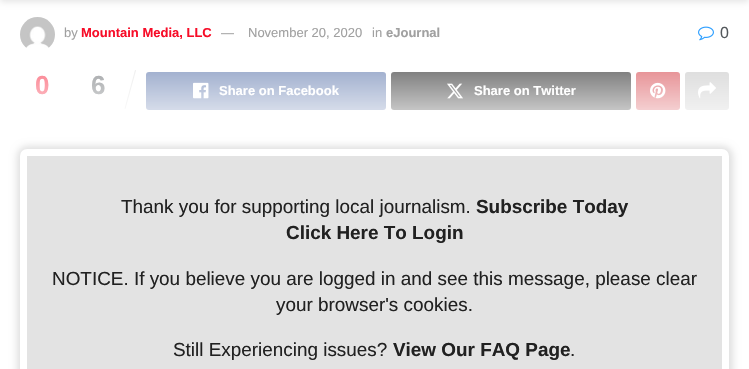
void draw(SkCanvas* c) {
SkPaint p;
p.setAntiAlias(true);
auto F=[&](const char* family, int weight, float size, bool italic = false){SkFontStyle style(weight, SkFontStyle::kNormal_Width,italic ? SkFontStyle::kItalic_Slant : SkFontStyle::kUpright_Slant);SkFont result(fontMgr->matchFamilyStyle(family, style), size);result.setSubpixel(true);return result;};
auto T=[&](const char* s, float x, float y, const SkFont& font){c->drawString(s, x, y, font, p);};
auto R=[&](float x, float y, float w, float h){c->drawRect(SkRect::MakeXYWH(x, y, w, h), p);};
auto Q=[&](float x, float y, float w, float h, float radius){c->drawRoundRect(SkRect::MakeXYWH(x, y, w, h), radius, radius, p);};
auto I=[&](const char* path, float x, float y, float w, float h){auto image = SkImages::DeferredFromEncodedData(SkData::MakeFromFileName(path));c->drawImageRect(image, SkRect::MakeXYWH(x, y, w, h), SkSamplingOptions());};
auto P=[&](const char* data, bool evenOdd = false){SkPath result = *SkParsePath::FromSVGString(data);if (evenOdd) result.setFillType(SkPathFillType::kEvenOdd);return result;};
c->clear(0xffffffff);
p.setColor(0x1a000000);
p.setMaskFilter(SkMaskFilter::MakeBlur(kNormal_SkBlurStyle, 3));
c->drawRect(SkRect::MakeXYWH(0,-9,749,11),p);
p.setMaskFilter(nullptr);
I("1.png",20,17,35,31);
auto f1 = F("Liberation Sans",400,13);
p.setColor(0xffa0a0a0);
T("by",64,37,f1);
auto f2 = F("Liberation Sans",700,13);
p.setColor(0xfff70d28);
T("Mountain Media, LLC",81,37,f2);
p.setColor(0xffa0a0a0);
T("—",221,37,f1);
T("November 20, 2020",248,37,f1);
T("in",372,37,f1);
T("eJournal",386,37,f2);
I("2.png",698,26,16,15);
auto f3 = F("Liberation Sans",400,16);
p.setColor(0xff53585c);
T("0",720,38,f3);
auto f4 = F("Liberation Sans",700,26);
p.setColor(0xfff70d28);
T("0",35,94,f4);
p.setColor(0xff53585c);
T("6",91,94,f4);
p.setColor(0xffe0e0e0);
c->drawPath(P("M135 70l1 .5l-10.5 38.5l-1-.5z"),p);
p.setColor(0xff45629f);
Q(146,72,240,38,3);
I("3.png",193,82,16,17);
p.setColor(0xffffffff);
T("Share on Facebook",219,95,f2);
p.setColor(0xff000000);
Q(391,72,240,38,3);
I("4.png",447,83,16,16);
p.setColor(0xffffffff);
T("Share on Twitter",474,95,f2);
p.setColor(0xffcf2830);
Q(636,72,44,38,3);
I("5.png",650,82,16,17);
p.setColor(0xffbdbdbd);
Q(685,72,44,38,3);
I("6.png",698,82,18,17);
{
const SkColor colors[] = {0x00ffffff,0x80ffffff,0xffffffff,0xffffffff};
const float stops[] = {0,.02,.23,1};
const SkPoint ends[] = {{375,65}, {375,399}};
p.setShader(SkGradientShader::MakeLinear(ends, colors, stops, 4, SkTileMode::kClamp));
p.setAlpha(255);
}
R(36,70,693,40);
p.setShader(nullptr);
p.setColor(0x1f000000);
p.setMaskFilter(SkMaskFilter::MakeBlur(kNormal_SkBlurStyle, 3.5));
c->drawRoundRect(SkRect::MakeXYWH(17,146,716,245),11,11,p);
p.setMaskFilter(nullptr);
p.setColor(0xffe3e3e3);
c->drawRoundRect(SkRect::MakeXYWH(23.5,152.5,702,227),3.5,3.5,p);
p.setStroke(true);
p.setStrokeWidth(7);
p.setColor(0xffffffff);
c->drawRoundRect(SkRect::MakeXYWH(23.5,152.5,702,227),3.5,3.5,p);
auto f5 = F("Liberation Sans",400,18.9);
p.setStroke(false);
p.setColor(0xff212121);
T("Thank you for supporting local journalism.",121,213,f5);
auto f6 = F("Liberation Sans",700,18.9);
T("Subscribe Today",476,213,f6);
T("Click Here To Login",286,239,f6);
T("NOTICE. If you believe you are logged in and see this message, please clear",52,285,f5);
T("your browser's cookies.",276,311,f5);
T("Still Experiencing issues?",173,356,f5);
T("View Our FAQ Page",393,356,f6);
T(".",570,356,f5);
}
